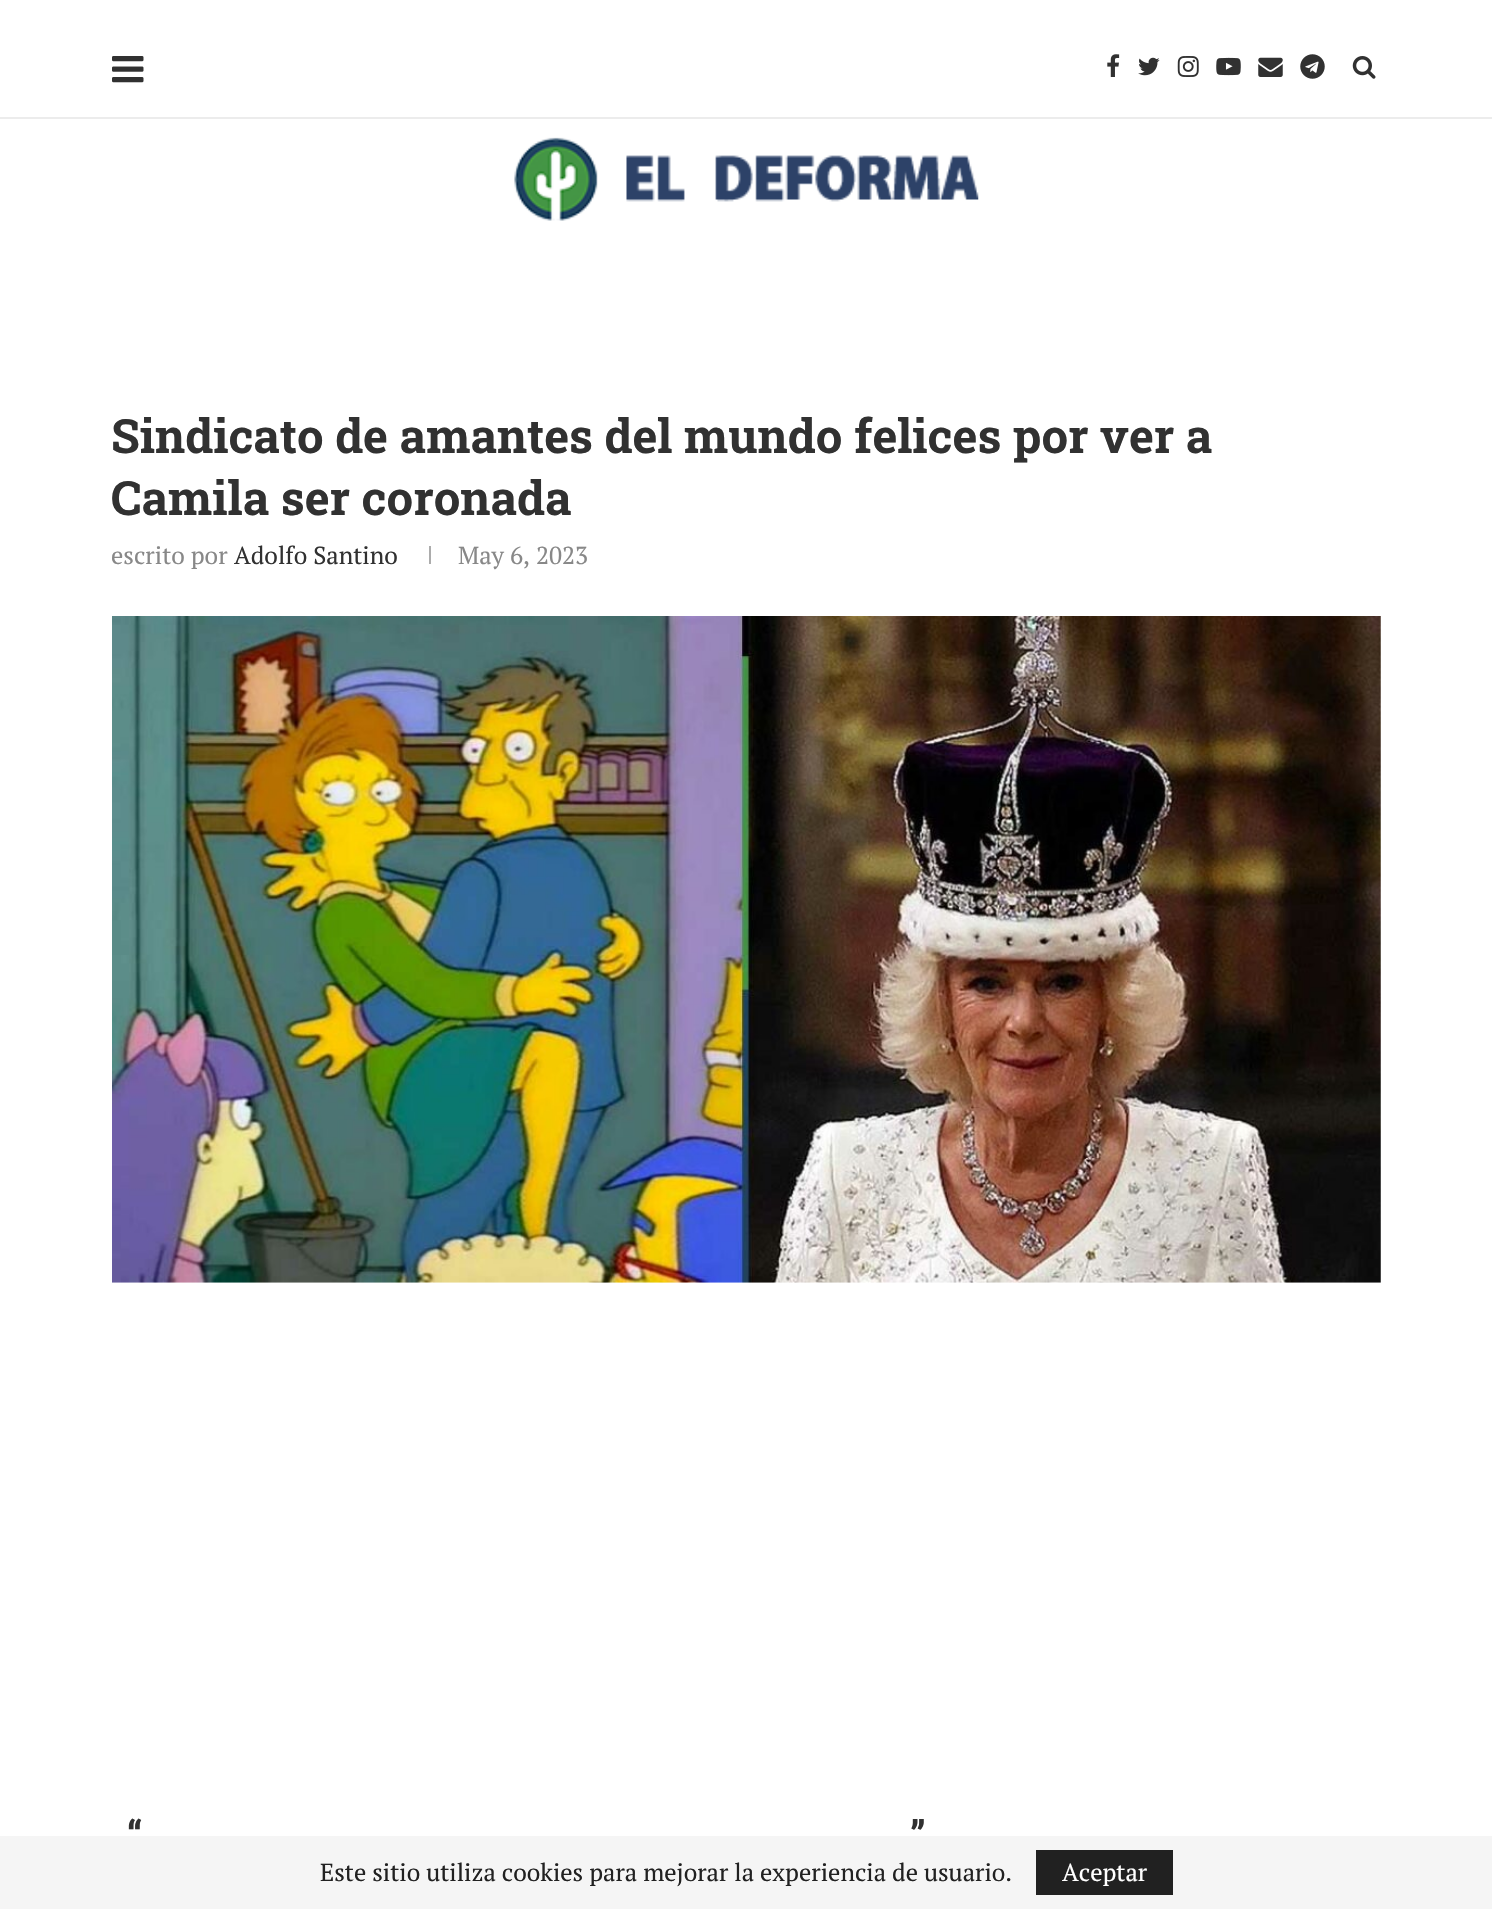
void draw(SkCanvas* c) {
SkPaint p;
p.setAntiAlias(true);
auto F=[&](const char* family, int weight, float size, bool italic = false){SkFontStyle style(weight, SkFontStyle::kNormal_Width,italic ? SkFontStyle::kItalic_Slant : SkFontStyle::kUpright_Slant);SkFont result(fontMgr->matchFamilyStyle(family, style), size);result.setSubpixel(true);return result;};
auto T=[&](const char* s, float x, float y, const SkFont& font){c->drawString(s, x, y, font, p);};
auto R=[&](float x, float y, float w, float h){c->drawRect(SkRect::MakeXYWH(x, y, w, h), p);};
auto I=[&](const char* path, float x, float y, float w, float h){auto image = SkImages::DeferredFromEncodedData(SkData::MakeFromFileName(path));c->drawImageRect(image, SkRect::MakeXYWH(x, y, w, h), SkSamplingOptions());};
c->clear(0xffffffff);
p.setColor(0xffececec);
R(0,117,1492,2);
I("1.png",112,56,32,27);
I("2.png",1107,54,13,23);
I("3.png",1138,57,22,19);
I("4.png",1177,56,22,21);
I("5.png",1216,57,25,19);
I("6.png",1258,57,25,20);
I("7.png",1300,54,25,25);
I("8.png",1352,56,24,23);
I("9.png",514,137,465,84);
auto f1 = F("Roboto Slab",700,47.25);
p.setColor(0xff313131);
T("Sindicato de amantes del mundo felices por ver a",111,453,f1);
T("Camila ser coronada",111,515,f1);
auto f2 = F("PT Serif",400,24.5);
p.setColor(0xff888888);
T("escrito por",111,564,f2);
p.setColor(0xff313131);
T("Adolfo Santino",234,564,f2);
p.setColor(0xffacacac);
R(429,546,2,18);
p.setColor(0xff888888);
T("May 6, 2023",458,564,f2);
I("10.png",112,616,1269,667);
auto f3 = F("Roboto Slab",700,38);
p.setColor(0xff313131);
T("“",127,1848,f3);
T("”",910,1848,f3);
p.setColor(0xfff5f5f5);
R(0,1836,1492,73);
p.setColor(0xff212121);
T("Este sitio utiliza cookies para mejorar la experiencia de usuario.",320,1881,f2);
R(1036,1850,137,45);
p.setColor(0xffffffff);
T("Aceptar",1062,1881,f2);
}
